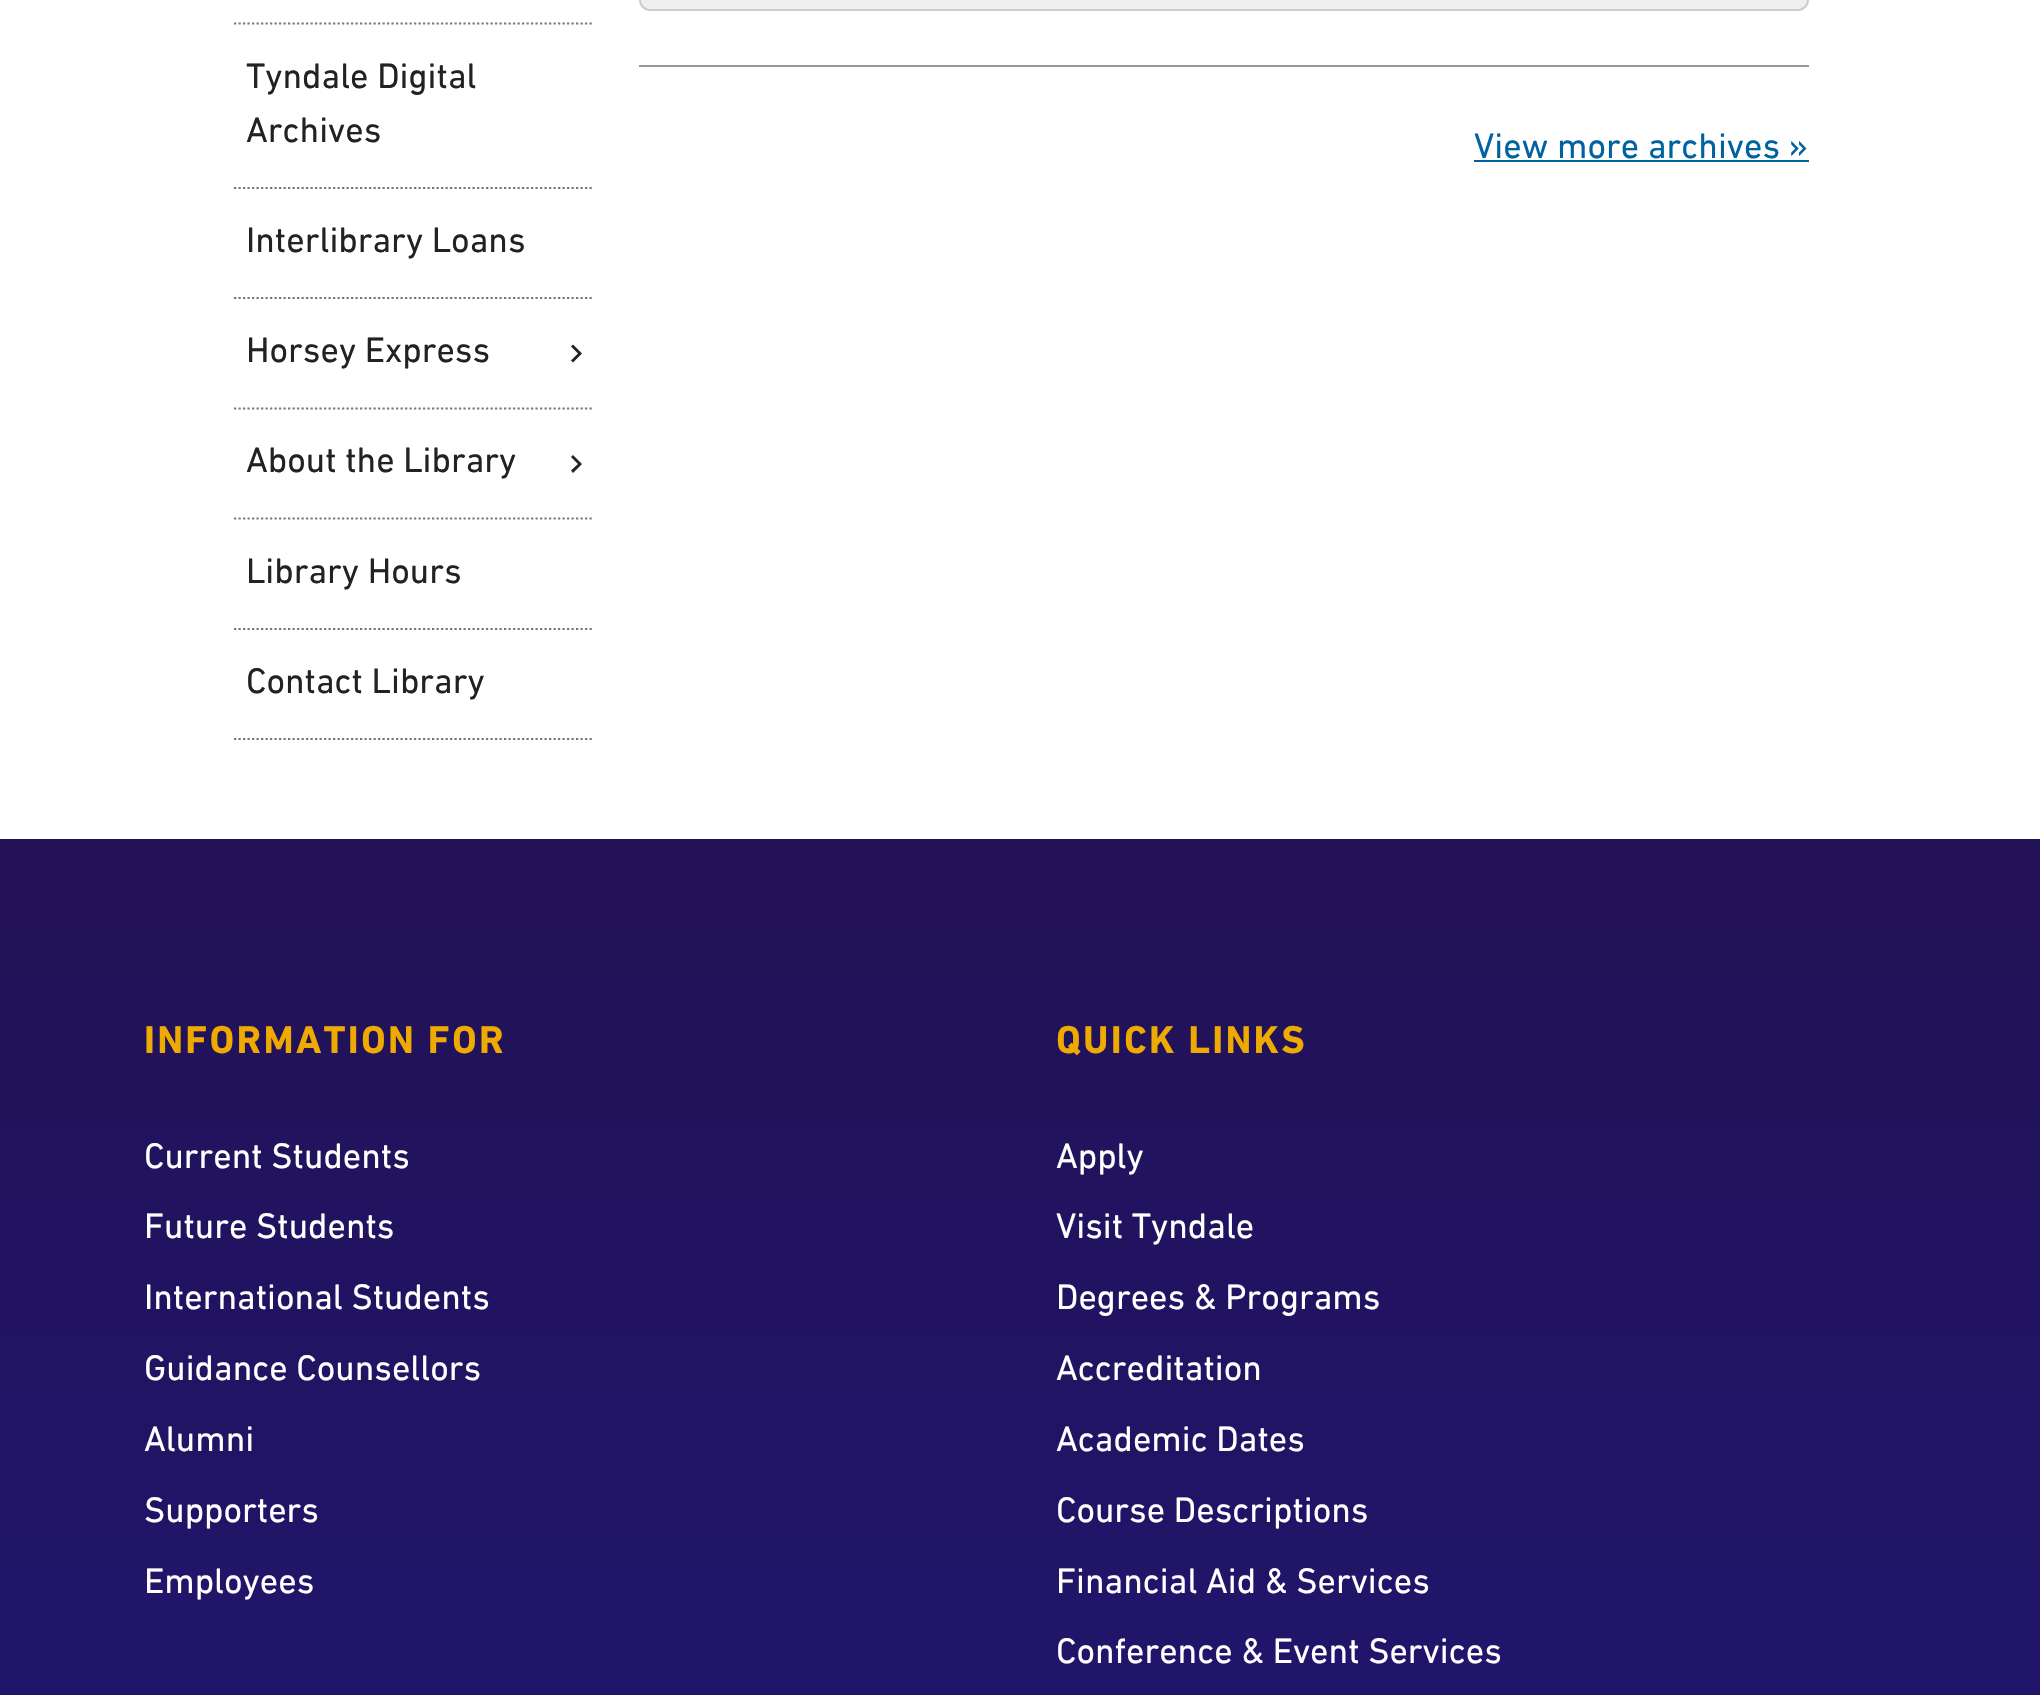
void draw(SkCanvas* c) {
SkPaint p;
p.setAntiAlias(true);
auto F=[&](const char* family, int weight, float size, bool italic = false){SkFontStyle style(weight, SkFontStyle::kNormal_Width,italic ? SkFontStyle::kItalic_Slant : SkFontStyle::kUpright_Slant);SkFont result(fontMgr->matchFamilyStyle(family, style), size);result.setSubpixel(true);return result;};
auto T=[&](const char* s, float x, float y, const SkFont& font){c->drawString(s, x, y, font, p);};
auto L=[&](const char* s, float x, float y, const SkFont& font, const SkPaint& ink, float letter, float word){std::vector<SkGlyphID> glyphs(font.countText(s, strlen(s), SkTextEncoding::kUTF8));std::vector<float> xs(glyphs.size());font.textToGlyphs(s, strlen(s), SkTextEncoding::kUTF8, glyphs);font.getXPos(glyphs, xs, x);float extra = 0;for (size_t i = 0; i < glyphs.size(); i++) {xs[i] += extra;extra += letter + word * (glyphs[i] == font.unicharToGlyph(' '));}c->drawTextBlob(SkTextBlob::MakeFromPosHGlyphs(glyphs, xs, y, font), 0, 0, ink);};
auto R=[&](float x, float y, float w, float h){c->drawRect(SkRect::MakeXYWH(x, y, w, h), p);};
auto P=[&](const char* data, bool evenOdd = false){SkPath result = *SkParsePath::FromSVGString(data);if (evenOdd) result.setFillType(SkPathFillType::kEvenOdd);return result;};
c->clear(0xffffffff);
p.setStroke(true);
p.setStrokeWidth(2.2);
p.setColor(0xff777777);
p.setPathEffect(SkDashPathEffect::Make({{2.25f,2.25f}}, 0));
c->drawPath(P("M234 23.5h360"),p);
p.setPathEffect(nullptr);
p.setPathEffect(SkDashPathEffect::Make({{2.25f,2.25f}}, 0));
c->drawPath(P("M234 188h360"),p);
p.setPathEffect(nullptr);
auto f1 = F("DIN Next",400,36);
p.setStroke(false);
p.setColor(0xff222222);
T("Tyndale Digital",246,88,f1);
T("Archives",246,142,f1);
p.setStroke(true);
p.setColor(0xff777777);
p.setPathEffect(SkDashPathEffect::Make({{2.25f,2.25f}}, 0));
c->drawPath(P("M234 298h360"),p);
p.setPathEffect(nullptr);
p.setStroke(false);
p.setColor(0xff222222);
T("Interlibrary Loans",246,252,f1);
p.setStroke(true);
p.setColor(0xff777777);
p.setPathEffect(SkDashPathEffect::Make({{2.25f,2.25f}}, 0));
c->drawPath(P("M234 408.5h360"),p);
p.setPathEffect(nullptr);
p.setStroke(false);
p.setColor(0xff222222);
T("Horsey Express",246,362,f1);
c->drawPath(P("M582 353.5l-9 9l-2-2l7-7l-7-7l2-2z"),p);
p.setStroke(true);
p.setColor(0xff777777);
p.setPathEffect(SkDashPathEffect::Make({{2.25f,2.25f}}, 0));
c->drawPath(P("M234 518.5h360"),p);
p.setPathEffect(nullptr);
p.setStroke(false);
p.setColor(0xff222222);
T("About the Library",246,472,f1);
c->drawPath(P("M582 464l-9 9l-2-2.5l7-6.5l-7-7l2-2z"),p);
p.setStroke(true);
p.setColor(0xff777777);
p.setPathEffect(SkDashPathEffect::Make({{2.25f,2.25f}}, 0));
c->drawPath(P("M234 629h360"),p);
p.setPathEffect(nullptr);
p.setStroke(false);
p.setColor(0xff222222);
T("Library Hours",246,583,f1);
p.setStroke(true);
p.setColor(0xff777777);
p.setPathEffect(SkDashPathEffect::Make({{2.25f,2.25f}}, 0));
c->drawPath(P("M234 739h360"),p);
p.setPathEffect(nullptr);
p.setStroke(false);
p.setColor(0xff222222);
T("Contact Library",246,693,f1);
p.setColor(0xffefefef);
c->drawRoundRect(SkRect::MakeXYWH(640,-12,1168,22),10,10,p);
p.setStroke(true);
p.setStrokeWidth(2);
p.setColor(0xffcccccc);
c->drawRoundRect(SkRect::MakeXYWH(640,-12,1168,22),10,10,p);
p.setStroke(false);
p.setColor(0xff999999);
R(639,65,1170,2);
p.setColor(0xff0062a0);
T("View more archives »",1474,158,f1);
R(1474,160,335,2);
{
const SkColor colors[] = {0xff221155,0xff1e1c8e};
const float stops[] = {0,1};
const SkPoint ends[] = {{1020,839}, {1020,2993}};
p.setShader(SkGradientShader::MakeLinear(ends, colors, stops, 2, SkTileMode::kClamp));
p.setAlpha(255);
}
R(0,839,2040,856);
auto f2 = F("DIN Next",700,39.5);
p.setShader(nullptr);
p.setColor(0xffeeaa00);
L("INFORMATION FOR",144,1053,f2,p,2.25,0);
p.setColor(0xffffffff);
T("Current Students",144,1168,f1);
T("Future Students",144,1238,f1);
T("International Students",144,1309,f1);
T("Guidance Counsellors",144,1380,f1);
T("Alumni",144,1451,f1);
T("Supporters",144,1522,f1);
T("Employees",144,1593,f1);
p.setColor(0xffeeaa00);
L("QUICK LINKS",1056,1053,f2,p,2.25,0);
p.setColor(0xffffffff);
T("Apply",1056,1168,f1);
T("Visit Tyndale",1056,1238,f1);
T("Degrees & Programs",1056,1309,f1);
T("Accreditation",1056,1380,f1);
T("Academic Dates",1056,1451,f1);
T("Course Descriptions",1056,1522,f1);
T("Financial Aid & Services",1056,1593,f1);
T("Conference & Event Services",1056,1663,f1);
}
